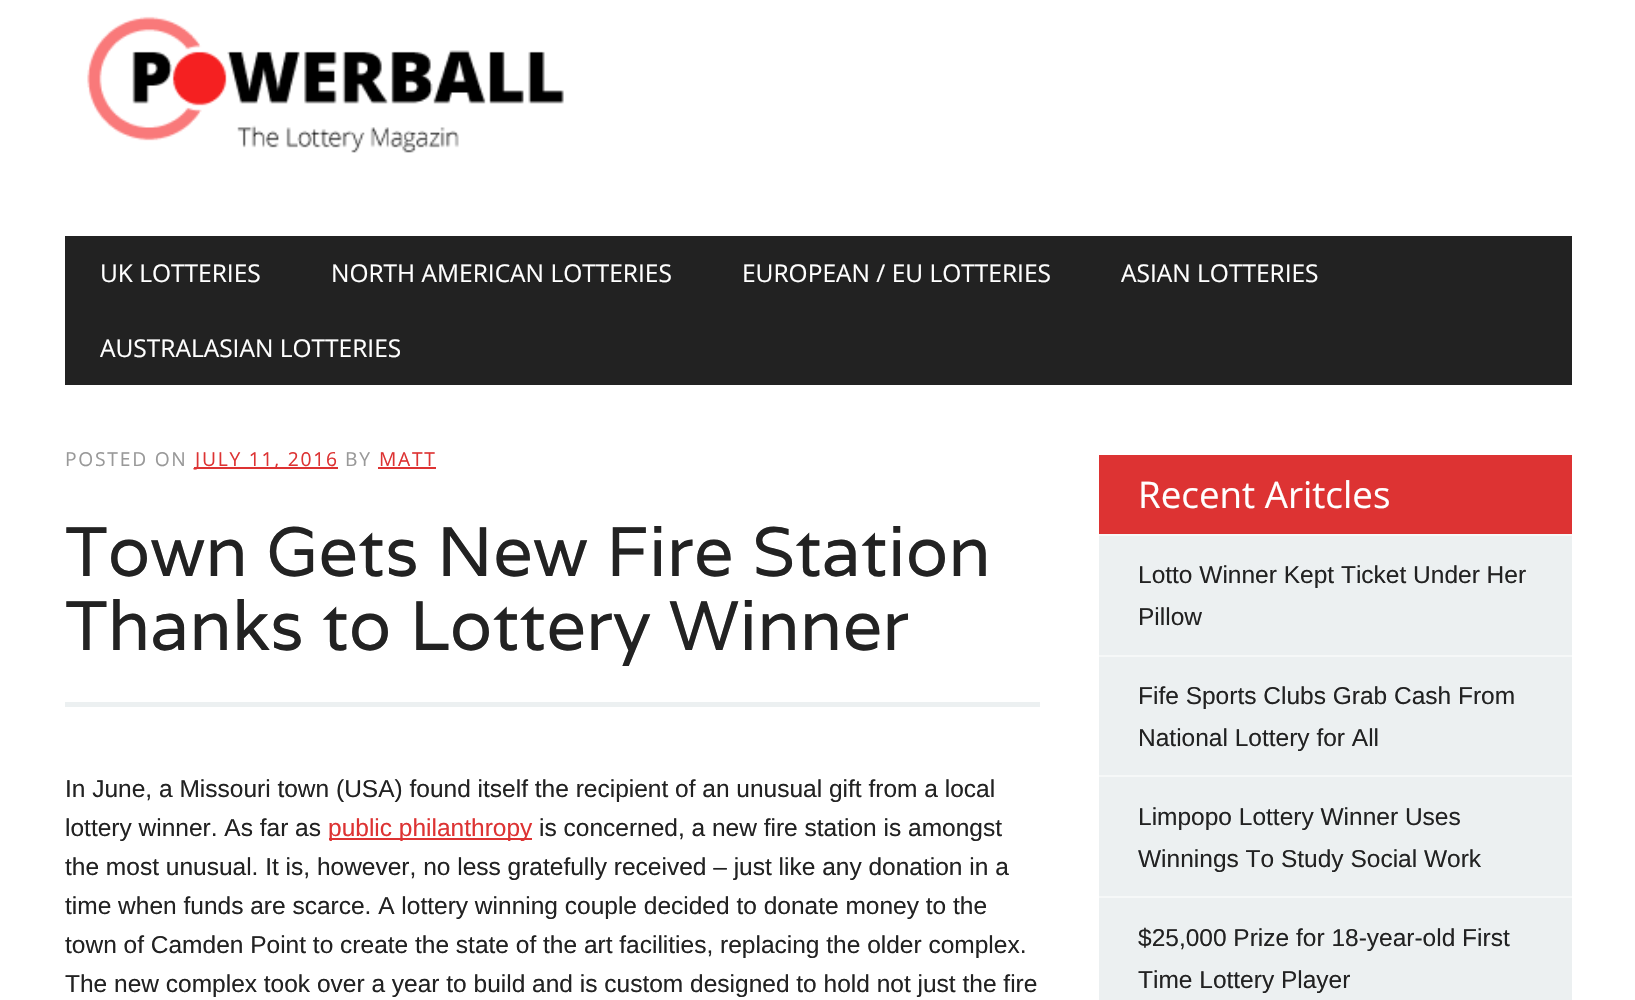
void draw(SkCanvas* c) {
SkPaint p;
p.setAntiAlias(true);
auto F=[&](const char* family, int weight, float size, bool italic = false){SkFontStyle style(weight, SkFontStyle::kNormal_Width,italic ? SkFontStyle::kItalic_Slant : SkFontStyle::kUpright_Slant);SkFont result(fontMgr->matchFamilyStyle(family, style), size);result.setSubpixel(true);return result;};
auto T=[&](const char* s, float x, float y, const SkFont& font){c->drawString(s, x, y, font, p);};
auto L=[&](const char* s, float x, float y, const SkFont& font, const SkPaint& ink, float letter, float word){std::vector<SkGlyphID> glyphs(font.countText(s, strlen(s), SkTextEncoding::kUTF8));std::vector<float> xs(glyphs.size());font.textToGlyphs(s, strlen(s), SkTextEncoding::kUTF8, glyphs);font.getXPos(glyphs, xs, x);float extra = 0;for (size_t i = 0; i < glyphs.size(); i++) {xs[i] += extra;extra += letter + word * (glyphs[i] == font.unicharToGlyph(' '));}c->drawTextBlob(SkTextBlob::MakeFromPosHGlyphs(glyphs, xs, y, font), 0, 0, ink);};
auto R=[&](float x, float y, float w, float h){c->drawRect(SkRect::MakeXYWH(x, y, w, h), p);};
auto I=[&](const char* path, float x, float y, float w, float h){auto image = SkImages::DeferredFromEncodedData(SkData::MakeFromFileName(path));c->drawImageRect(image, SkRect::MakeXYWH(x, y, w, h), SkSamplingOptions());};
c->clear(0xffffffff);
I("1.png",87,16,477,137);
p.setColor(0xff222222);
R(65,236,1507,149);
auto f1 = F("Open Sans",400,24.5);
p.setColor(0xffffffff);
T("UK LOTTERIES",100,282,f1);
T("NORTH AMERICAN LOTTERIES",331,282,f1);
T("EUROPEAN / EU LOTTERIES",742,282,f1);
T("ASIAN LOTTERIES",1121,282,f1);
T("AUSTRALASIAN LOTTERIES",100,357,f1);
auto f2 = F("Open Sans",400,19.25);
p.setColor(0xff999999);
L("POSTED ON",65,466,f2,p,1.75,0);
p.setColor(0xffdd3333);
R(194,467,144,2);
L("JULY 11, 2016",195,466,f2,p,1.75,0);
p.setColor(0xff999999);
L("BY",345,466,f2,p,1.75,0);
p.setColor(0xffdd3333);
L("MATT",379,466,f2,p,1.75,0);
R(378,467,58,2);
p.setColor(0xffecf0f1);
R(65,702,975,5);
auto f3 = F("Varela",400,70);
p.setColor(0xff222222);
T("Town Gets New Fire Station",65,576,f3);
T("Thanks to Lottery Winner",65,650,f3);
auto f4 = F("Liberation Sans",400,24.5);
T("In June, a Missouri town (USA) found itself the recipient of an unusual gift from a local",65,797,f4);
T("lottery winner. As far as",65,836,f4);
p.setColor(0xffdd3333);
R(329,838,203,2);
T("public philanthropy",328,836,f4);
p.setColor(0xff222222);
T("is concerned, a new fire station is amongst",539,836,f4);
T("the most unusual. It is, however, no less gratefully received – just like any donation in a",65,875,f4);
T("time when funds are scarce. A lottery winning couple decided to donate money to the",65,914,f4);
T("town of Camden Point to create the state of the art facilities, replacing the older complex.",65,953,f4);
T("The new complex took over a year to build and is custom designed to hold not just the fire",65,992,f4);
p.setColor(0xffecf0f1);
R(1099,536,473,464);
p.setColor(0xffdd3333);
R(1099,455,473,79);
auto f5 = F("Open Sans",400,36.75);
p.setColor(0xffffffff);
T("Recent Aritcles",1138,508,f5);
p.setColor(0xfff6f8f8);
R(1099,534,473,2);
p.setColor(0xff222222);
T("Lotto Winner Kept Ticket Under Her",1138,583,f4);
T("Pillow",1138,625,f4);
p.setColor(0xfff6f8f8);
R(1099,655,473,2);
p.setColor(0xff222222);
T("Fife Sports Clubs Grab Cash From",1138,704,f4);
T("National Lottery for All",1138,746,f4);
p.setColor(0xfff6f8f8);
R(1099,775,473,2);
p.setColor(0xff222222);
T("Limpopo Lottery Winner Uses",1138,825,f4);
T("Winnings To Study Social Work",1138,867,f4);
p.setColor(0xfff6f8f8);
R(1099,896,473,2);
p.setColor(0xff222222);
T("$25,000 Prize for 18-year-old First",1138,946,f4);
T("Time Lottery Player",1138,988,f4);
}
